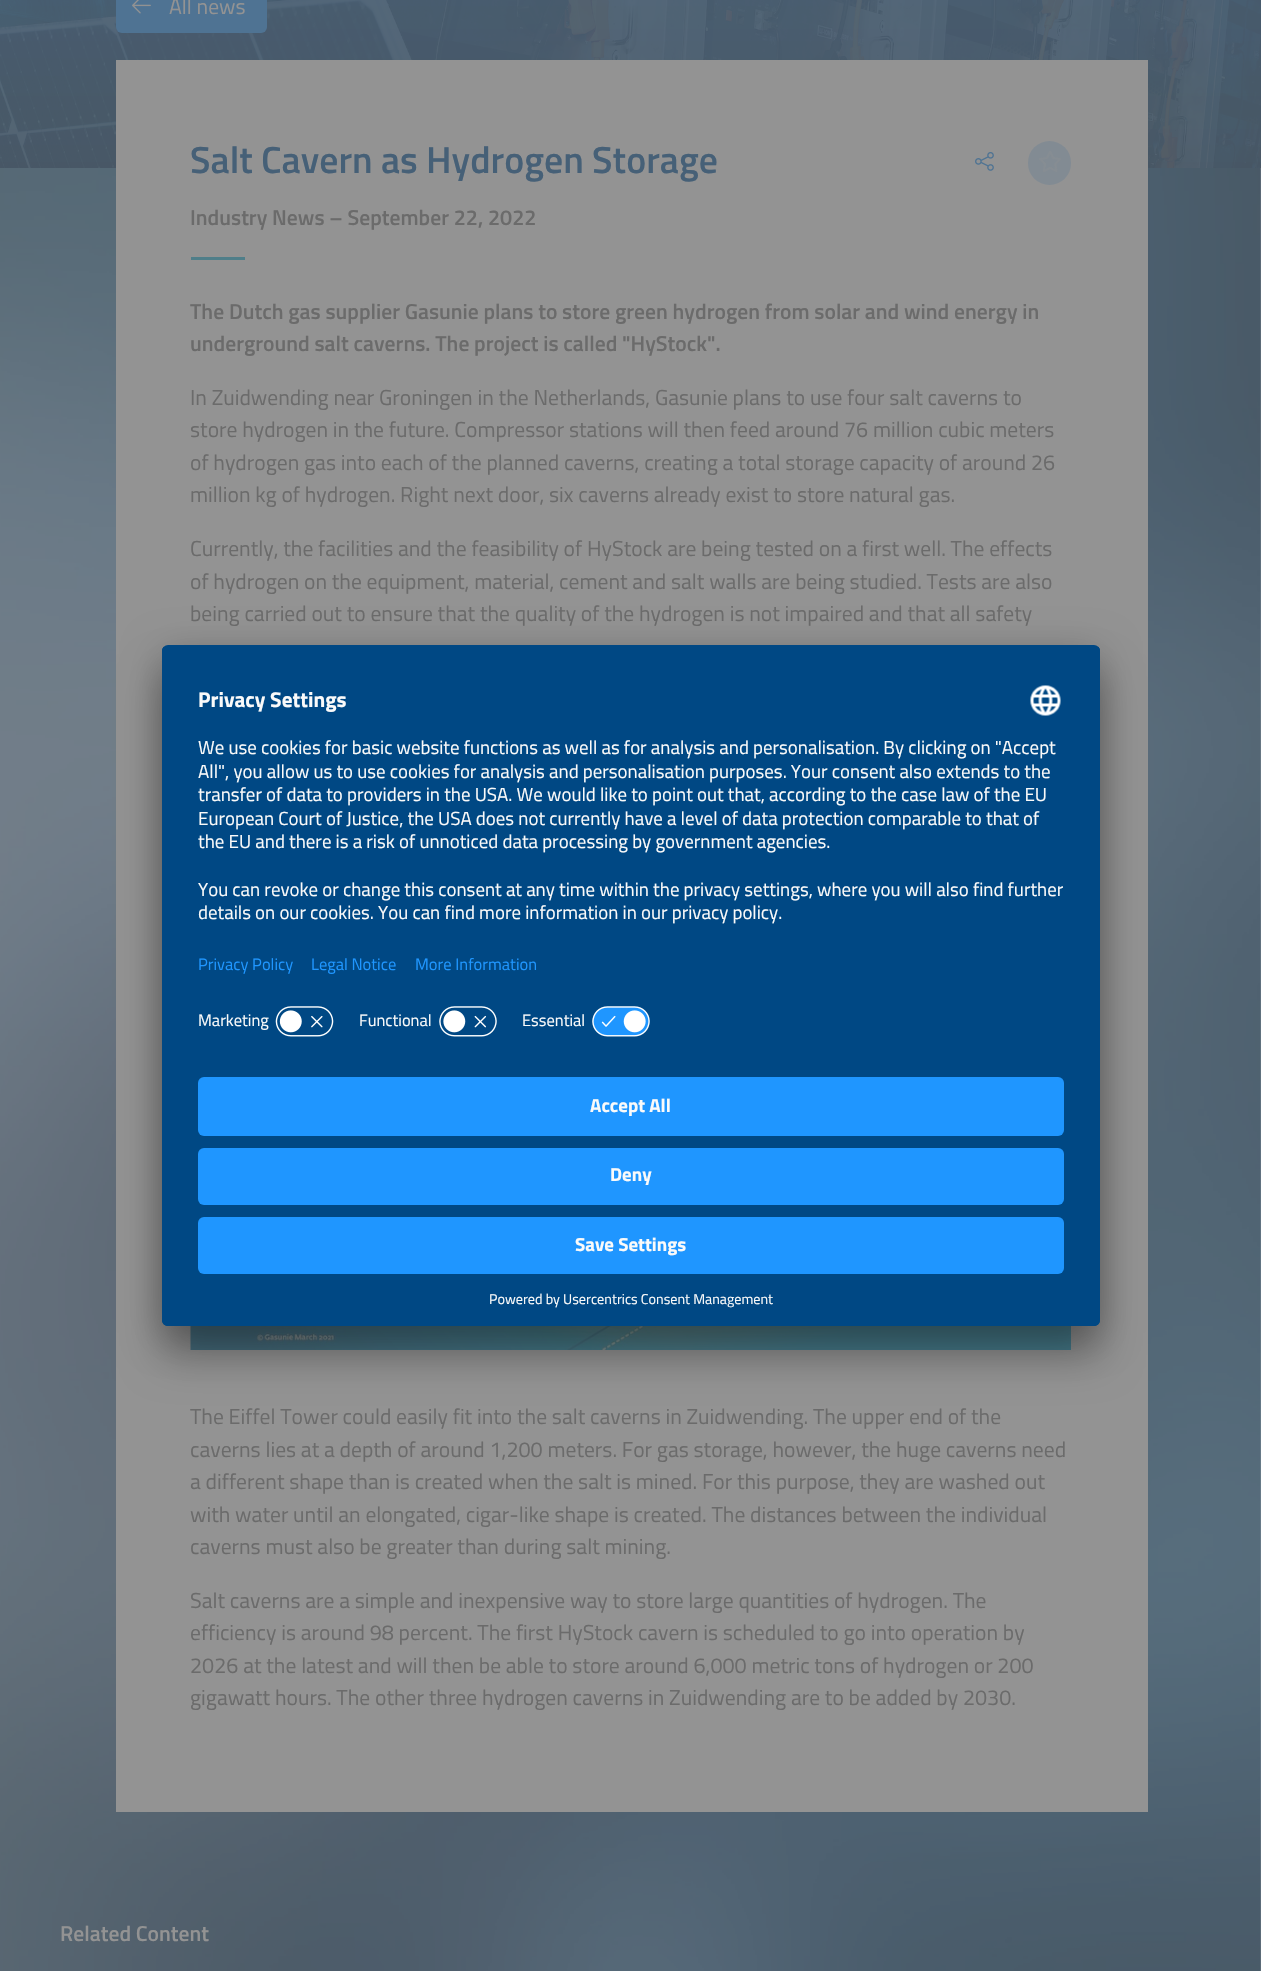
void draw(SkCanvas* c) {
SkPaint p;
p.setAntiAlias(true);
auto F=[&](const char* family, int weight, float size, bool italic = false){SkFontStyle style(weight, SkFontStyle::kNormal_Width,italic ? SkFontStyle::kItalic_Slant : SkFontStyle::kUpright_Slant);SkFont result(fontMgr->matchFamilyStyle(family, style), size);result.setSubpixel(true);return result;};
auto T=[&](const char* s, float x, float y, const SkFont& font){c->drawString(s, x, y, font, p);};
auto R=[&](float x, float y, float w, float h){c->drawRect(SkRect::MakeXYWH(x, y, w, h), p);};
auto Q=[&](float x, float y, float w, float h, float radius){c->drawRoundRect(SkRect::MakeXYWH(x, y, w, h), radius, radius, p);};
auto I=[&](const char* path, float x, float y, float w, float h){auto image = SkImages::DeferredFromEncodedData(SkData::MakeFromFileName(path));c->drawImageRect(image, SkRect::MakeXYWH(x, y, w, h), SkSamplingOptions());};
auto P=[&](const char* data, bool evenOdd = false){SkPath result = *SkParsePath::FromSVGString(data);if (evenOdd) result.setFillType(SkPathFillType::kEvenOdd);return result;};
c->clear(0xffffffff);
I("1.png",0,0,1261,1971);
I("2.png",0,0,1261,168);
{
const SkColor colors[] = {0xcf466077,0xcf46535e};
const float stops[] = {0,1};
const SkPoint ends[] = {{631,-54}, {631,378}};
p.setShader(SkGradientShader::MakeLinear(ends, colors, stops, 2, SkTileMode::kClamp));
p.setAlpha(255);
}
R(0,0,1261,168);
p.setShader(nullptr);
p.setColor(0xff939393);
R(116,60,1032,1752);
p.setColor(0xff4f7393);
Q(116,-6,151,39,6);
I("3.png",132,0,19,14);
auto f1 = F("Titillium Web",400,21.6);
p.setColor(0xff939393);
T("All news",169,14,f1);
auto f2 = F("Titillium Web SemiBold",600,37.75);
p.setColor(0xff466077);
T("Salt Cavern as Hydrogen Storage",190,173,f2);
I("4.png",975,152,19,19);
p.setColor(0xff828b93);
Q(1028,141,43,44,21.5);
I("5.png",1039,151,22,21);
auto f3 = F("Titillium Web SemiBold",600,21.6);
p.setColor(0xff6b6b6b);
T("Industry News – September 22, 2022",190,225,f3);
p.setColor(0xff4f7e89);
R(191,257,54,3);
p.setColor(0xff6b6b6b);
T("The Dutch gas supplier Gasunie plans to store green hydrogen from solar and wind energy in",190,319,f3);
T("underground salt caverns. The project is called \"HyStock\".",190,351,f3);
T("In Zuidwending near Groningen in the Netherlands, Gasunie plans to use four salt caverns to",190,405,f1);
T("store hydrogen in the future. Compressor stations will then feed around 76 million cubic meters",190,437,f1);
T("of hydrogen gas into each of the planned caverns, creating a total storage capacity of around 26",190,470,f1);
T("million kg of hydrogen. Right next door, six caverns already exist to store natural gas.",190,502,f1);
T("Currently, the facilities and the feasibility of HyStock are being tested on a first well. The effects",190,556,f1);
T("of hydrogen on the equipment, material, cement and salt walls are being studied. Tests are also",190,589,f1);
T("being carried out to ensure that the quality of the hydrogen is not impaired and that all safety",190,621,f1);
I("6.png",190,1326,881,24);
T("The Eiffel Tower could easily fit into the salt caverns in Zuidwending. The upper end of the",190,1424,f1);
T("caverns lies at a depth of around 1,200 meters. For gas storage, however, the huge caverns need",190,1457,f1);
T("a different shape than is created when the salt is mined. For this purpose, they are washed out",190,1489,f1);
T("with water until an elongated, cigar-like shape is created. The distances between the individual",190,1522,f1);
T("caverns must also be greater than during salt mining.",190,1554,f1);
T("Salt caverns are a simple and inexpensive way to store large quantities of hydrogen. The",190,1608,f1);
T("efficiency is around 98 percent. The first HyStock cavern is scheduled to go into operation by",190,1640,f1);
T("2026 at the latest and will then be able to store around 6,000 metric tons of hydrogen or 200",190,1673,f1);
T("gigawatt hours. The other three hydrogen caverns in Zuidwending are to be added by 2030.",190,1705,f1);
p.setColor(0xff939393);
T("Related Content",60,1941,f3);
p.setColor(0x4d000000);
p.setMaskFilter(SkMaskFilter::MakeBlur(kNormal_SkBlurStyle, 21));
c->drawRoundRect(SkRect::MakeXYWH(162,675,938,681),6,6,p);
p.setMaskFilter(nullptr);
p.setColor(0x38000000);
p.setMaskFilter(SkMaskFilter::MakeBlur(kNormal_SkBlurStyle, 19.5));
c->drawRoundRect(SkRect::MakeXYWH(162,653,938,681),6,6,p);
p.setMaskFilter(nullptr);
p.setColor(0xff004884);
Q(162,645,938,681,6);
c->save();
c->clipPath(P("M168 645h926c3.5 0 6 2.5 6 6v669c0 3.5-2.5 6-6 6h-926c-3.5 0-6-2.5-6-6v-669c0-3.5 2.5-6 6-6z"),true);
c->clipPath(P("M168 645h926c3.5 0 6 2.5 6 6v408h-938v-408c0-3.5 2.5-6 6-6z"),true);
R(162,647,938,412);
R(162,647,938,352);
c->restore();
auto f4 = F("Titillium Web",700,21.25);
p.setColor(0xfffafafa);
T("Privacy Settings",198,707,f4);
I("7.png",1030,685,31,31);
auto f5 = F("Titillium Web",400,18.9);
T("We use cookies for basic website functions as well as for analysis and personalisation. By clicking on \"Accept",198,754,f5);
T("All\", you allow us to use cookies for analysis and personalisation purposes. Your consent also extends to the",198,778,f5);
T("transfer of data to providers in the USA. We would like to point out that, according to the case law of the EU",198,801,f5);
T("European Court of Justice, the USA does not currently have a level of data protection comparable to that of",198,825,f5);
T("the EU and there is a risk of unnoticed data processing by government agencies.",198,848,f5);
T("You can revoke or change this consent at any time within the privacy settings, where you will also find further",198,896,f5);
T("details on our cookies. You can find more information in our privacy policy.",198,919,f5);
auto f6 = F("Titillium Web",400,16.5);
p.setColor(0xff1f96ff);
T("Privacy Policy",198,970,f6);
T("Legal Notice",311,970,f6);
T("More Information",415,970,f6);
p.setColor(0xfffafafa);
T("Marketing",198,1026,f6);
I("8.png",275,1006,59,31);
T("Functional",359,1026,f6);
I("9.png",439,1006,58,31);
T("Essential",522,1026,f6);
I("10.png",592,1006,58,31);
p.setColor(0xff004884);
c->drawPath(P("M162 1059h938v261c0 3.5-2.5 6-6 6h-926c-3.5 0-6-2.5-6-6z"),p);
p.setColor(0xff1f96ff);
Q(198,1077,866,59,6);
auto f7 = F("Titillium Web",700,18.9);
p.setColor(0xfffafafa);
T("Accept All",590,1112,f7);
p.setColor(0xff1f96ff);
Q(198,1148,866,57,6);
p.setColor(0xfffafafa);
T("Deny",610,1181,f7);
p.setColor(0xff1f96ff);
Q(198,1217,866,57,6);
p.setColor(0xfffafafa);
T("Save Settings",575,1251,f7);
auto f8 = F("Titillium Web",400,14.2);
T("Powered by Usercentrics Consent Management",489,1304,f8);
}
